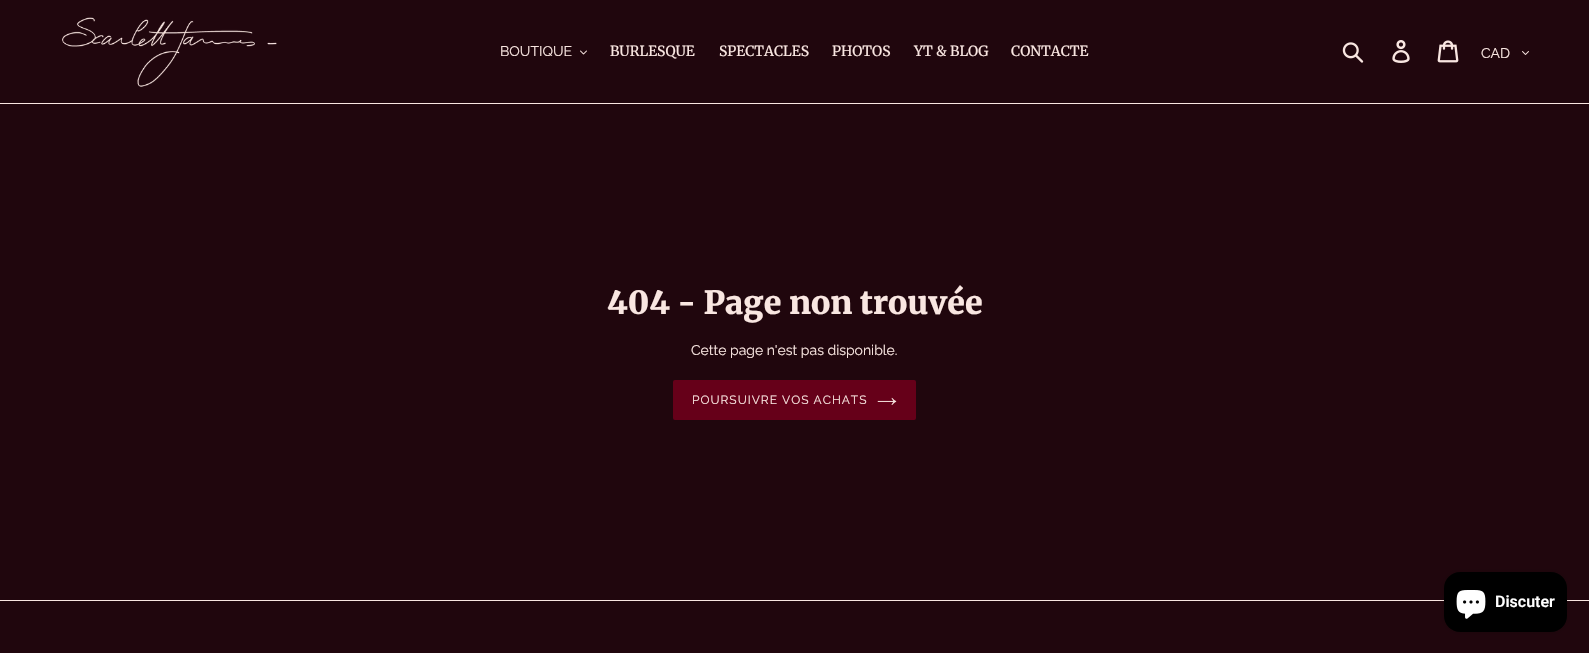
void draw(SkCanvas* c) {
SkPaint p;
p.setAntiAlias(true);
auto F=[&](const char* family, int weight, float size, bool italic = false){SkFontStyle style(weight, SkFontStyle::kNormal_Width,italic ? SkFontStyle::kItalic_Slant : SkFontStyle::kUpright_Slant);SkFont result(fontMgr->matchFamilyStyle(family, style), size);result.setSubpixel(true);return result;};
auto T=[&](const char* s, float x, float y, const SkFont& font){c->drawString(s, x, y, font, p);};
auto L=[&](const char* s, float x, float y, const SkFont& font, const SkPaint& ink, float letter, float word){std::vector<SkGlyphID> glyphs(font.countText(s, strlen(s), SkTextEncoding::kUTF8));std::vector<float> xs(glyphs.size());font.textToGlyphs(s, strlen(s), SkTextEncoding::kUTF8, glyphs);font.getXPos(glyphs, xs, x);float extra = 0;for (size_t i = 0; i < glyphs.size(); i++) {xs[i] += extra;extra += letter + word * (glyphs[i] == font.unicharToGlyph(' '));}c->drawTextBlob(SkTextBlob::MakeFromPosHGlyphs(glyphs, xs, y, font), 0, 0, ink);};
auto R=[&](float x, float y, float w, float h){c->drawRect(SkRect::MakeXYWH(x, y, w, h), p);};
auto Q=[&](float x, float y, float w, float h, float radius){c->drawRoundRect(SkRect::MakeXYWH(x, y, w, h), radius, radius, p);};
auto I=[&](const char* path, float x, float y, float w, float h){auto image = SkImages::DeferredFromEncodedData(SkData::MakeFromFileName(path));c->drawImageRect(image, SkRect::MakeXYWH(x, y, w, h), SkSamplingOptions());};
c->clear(0xff20060d);
p.setColor(0xfff9e6e1);
R(0,103,1589,1);
I("1.png",62,17,215,70);
auto f1 = F("Raleway",400,14);
T("BOUTIQUE",500,56,f1);
I("2.png",580,50,7,5);
auto f2 = F("Merriweather",400,14);
T("BURLESQUE",610,56,f2);
T("SPECTACLES",719,56,f2);
T("PHOTOS",832,56,f2);
T("YT & BLOG",914,56,f2);
T("CONTACTE",1011,56,f2);
I("3.png",1342,42,22,21);
I("4.png",1392,40,18,23);
I("5.png",1437,40,22,23);
T("CAD",1481,58,f1);
I("6.png",1522,51,7,4);
auto f3 = F("Merriweather",900,32);
T("404 - Page non trouvée",607,314,f3);
T("Cette page n'est pas disponible.",691,355,f1);
p.setColor(0xff660019);
Q(673,380,243,40,2);
auto f4 = F("Raleway",400,12);
p.setColor(0xfff9e6e1);
L("POURSUIVRE VOS ACHATS",692,404,f4,p,1,0);
I("7.png",877,397,20,8);
R(0,600,1589,1);
p.setColor(0x26000000);
p.setMaskFilter(SkMaskFilter::MakeBlur(kNormal_SkBlurStyle, 2.5));
c->drawRoundRect(SkRect::MakeXYWH(1444,572,123,60),16,16,p);
p.setMaskFilter(nullptr);
p.setColor(0xff000000);
Q(1444,572,123,60,16);
I("8.png",1456,590,30,29);
auto f5 = F("Roboto",600,16);
p.setColor(0xffffffff);
T("Discuter",1495,607,f5);
}
